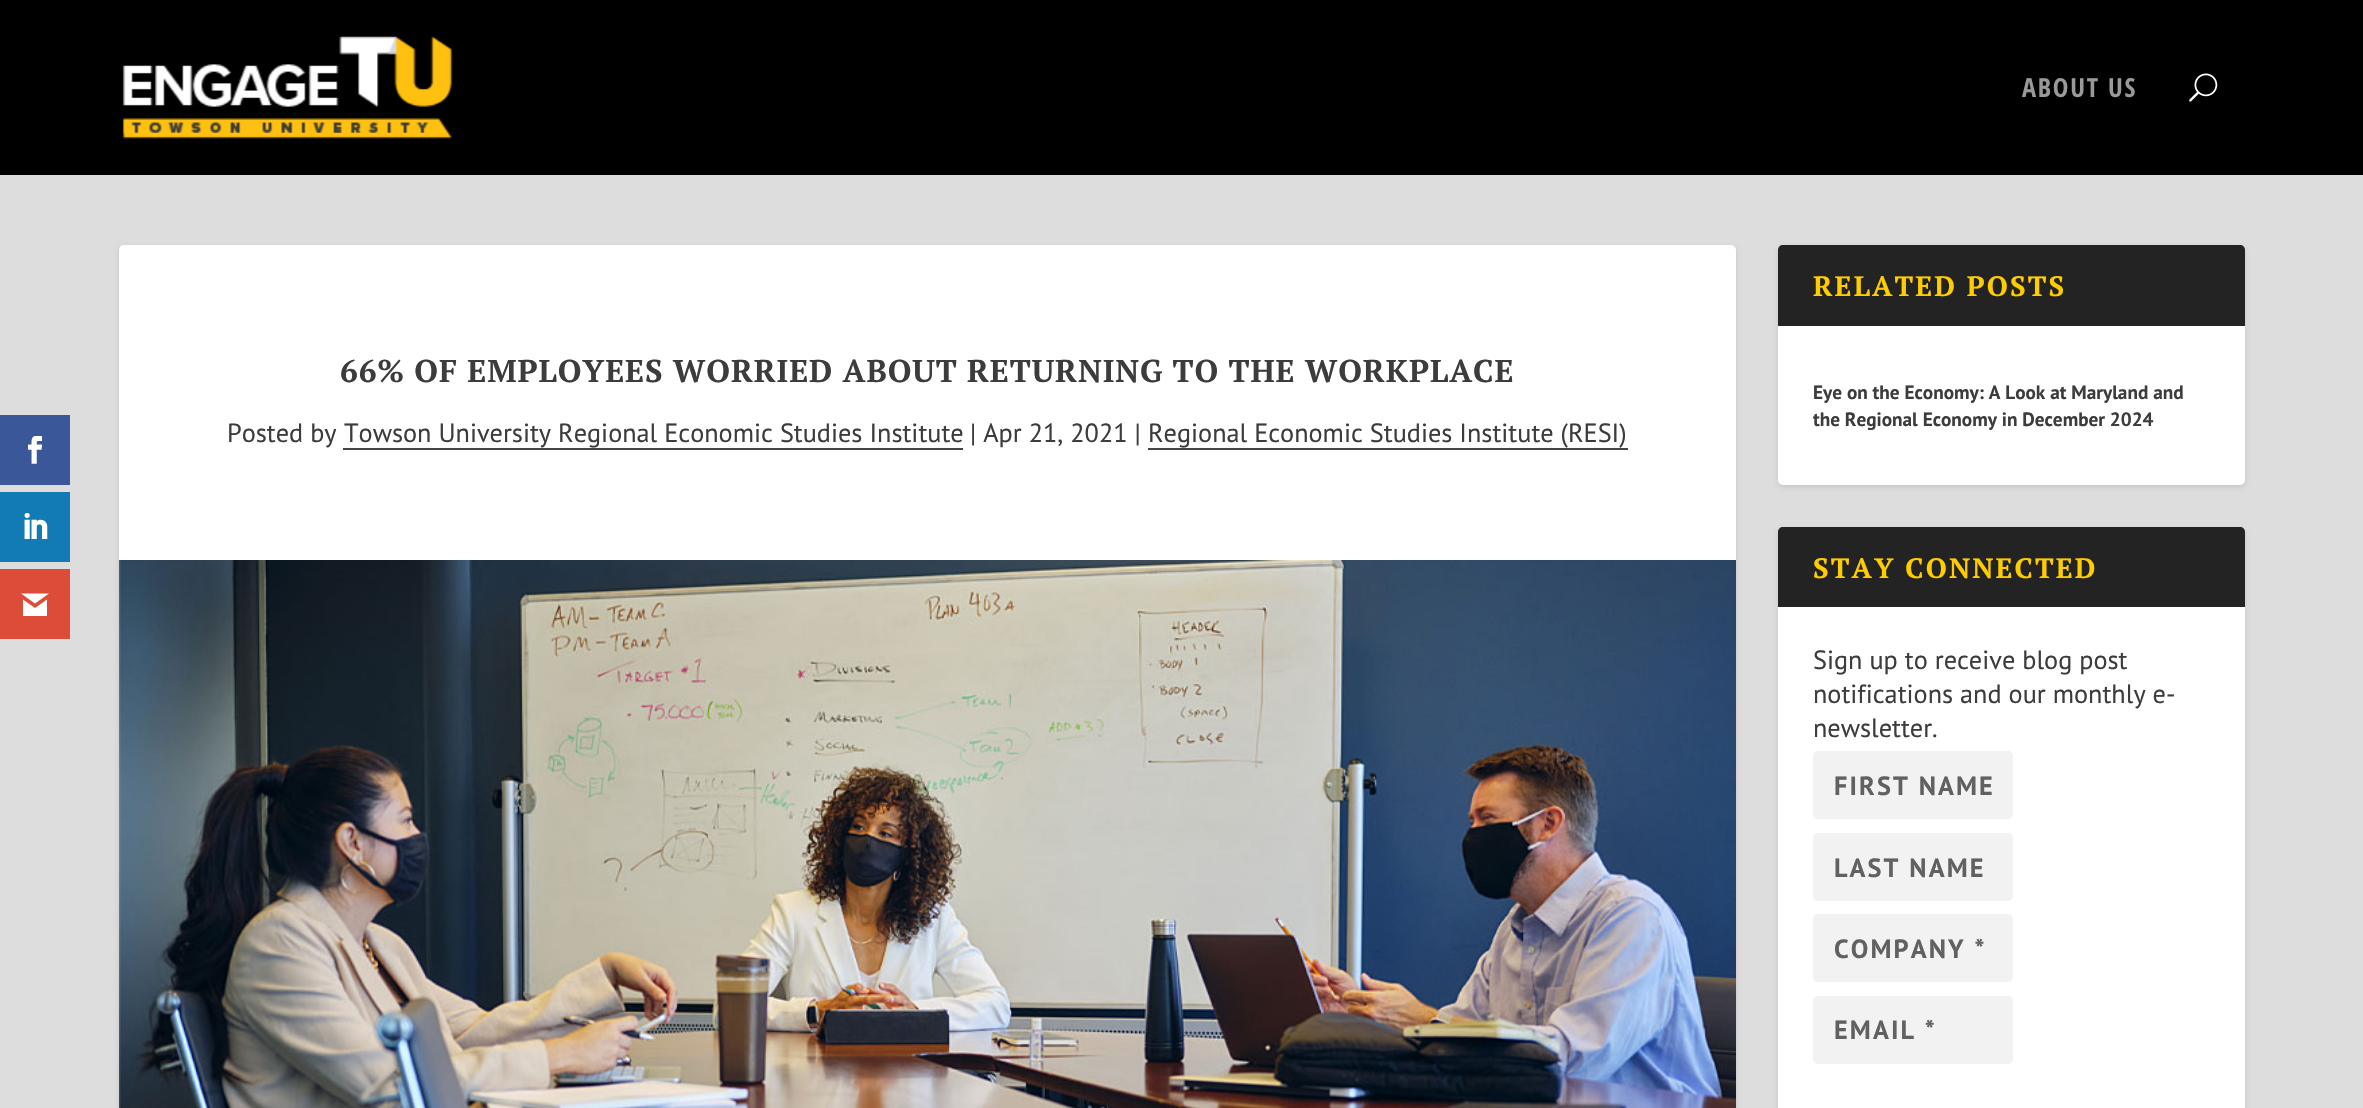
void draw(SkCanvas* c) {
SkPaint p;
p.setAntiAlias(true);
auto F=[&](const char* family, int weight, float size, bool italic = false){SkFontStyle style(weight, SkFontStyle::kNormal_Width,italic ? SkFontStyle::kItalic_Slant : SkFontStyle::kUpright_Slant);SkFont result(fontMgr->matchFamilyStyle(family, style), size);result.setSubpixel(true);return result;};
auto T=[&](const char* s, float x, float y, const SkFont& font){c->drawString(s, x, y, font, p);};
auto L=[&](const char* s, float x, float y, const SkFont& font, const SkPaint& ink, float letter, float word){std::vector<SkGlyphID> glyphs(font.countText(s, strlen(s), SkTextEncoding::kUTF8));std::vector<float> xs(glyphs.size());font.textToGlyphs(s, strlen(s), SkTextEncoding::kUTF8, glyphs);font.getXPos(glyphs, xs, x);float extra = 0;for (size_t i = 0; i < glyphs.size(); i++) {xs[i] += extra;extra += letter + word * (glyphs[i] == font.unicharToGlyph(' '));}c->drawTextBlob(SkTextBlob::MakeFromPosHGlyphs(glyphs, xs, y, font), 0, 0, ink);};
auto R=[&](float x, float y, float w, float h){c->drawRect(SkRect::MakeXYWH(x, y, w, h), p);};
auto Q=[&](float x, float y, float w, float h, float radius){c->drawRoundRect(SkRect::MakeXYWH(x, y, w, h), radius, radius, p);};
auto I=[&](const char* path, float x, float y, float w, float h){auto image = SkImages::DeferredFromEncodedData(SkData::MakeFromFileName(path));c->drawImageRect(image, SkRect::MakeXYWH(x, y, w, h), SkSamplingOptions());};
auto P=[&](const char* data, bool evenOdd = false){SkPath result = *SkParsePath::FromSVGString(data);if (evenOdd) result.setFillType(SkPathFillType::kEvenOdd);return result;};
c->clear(0xffdddddd);
p.setColor(0xff3a579a);
R(0,415,70,70);
I("1.png",28,436,15,28);
p.setColor(0xff127bb6);
R(0,492,70,70);
I("2.png",24,513,24,26);
p.setColor(0xffdd4b39);
R(0,569,70,70);
p.setColor(0xffffffff);
c->drawPath(P("M49 593.5h-28l14 10zm-14 14.5l-12-8.5v16.5h24v-16.5z"),p);
p.setColor(0xff000000);
R(0,0,2363,175);
I("3.png",122,36,331,103);
auto f1 = F("Open Sans Condensed",700,26.25);
p.setColor(0xff999999);
L("ABOUT US",2022,97,f1,p,1.75,0);
I("4.png",2189,73,29,29);
p.setColor(0x1a000000);
p.setMaskFilter(SkMaskFilter::MakeBlur(kNormal_SkBlurStyle, 2.5));
c->drawRoundRect(SkRect::MakeXYWH(119,247,1617,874),5,5,p);
p.setMaskFilter(nullptr);
p.setColor(0xffffffff);
Q(119,245,1617,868,5);
auto f2 = F("PT Serif",700,31.5);
p.setColor(0xff3c3c3c);
L("66% OF EMPLOYEES WORRIED ABOUT RETURNING TO THE WORKPLACE",340,382,f2,p,.88,0);
auto f3 = F("PT Sans",400,26.25);
T("Posted by",227,442,f3);
T("Towson University Regional Economic Studies Institute",344,442,f3);
p.setColor(0xff444444);
R(343,448,620,2);
p.setColor(0xff3c3c3c);
T("| Apr 21, 2021 |",970,442,f3);
T("Regional Economic Studies Institute (RESI)",1148,442,f3);
p.setColor(0xff444444);
R(1148,448,480,2);
I("5.png",119,560,1617,548);
p.setColor(0x1a000000);
p.setMaskFilter(SkMaskFilter::MakeBlur(kNormal_SkBlurStyle, 2.5));
c->drawRoundRect(SkRect::MakeXYWH(1778,247,467,240),5,5,p);
p.setMaskFilter(nullptr);
p.setColor(0xffffffff);
Q(1778,245,467,240,5);
p.setColor(0xff232323);
c->drawPath(P("M1783 245h457c3 0 5 2 5 5v76h-467v-76c0-3 2-5 5-5z"),p);
auto f4 = F("PT Serif",700,28);
p.setColor(0xffffcc00);
L("RELATED POSTS",1813,296,f4,p,2.1,0);
auto f5 = F("PT Sans",700,19.25);
p.setColor(0xff3c3c3c);
T("Eye on the Economy: A Look at Maryland and",1813,399,f5);
T("the Regional Economy in December 2024",1813,426,f5);
p.setColor(0x1a000000);
p.setMaskFilter(SkMaskFilter::MakeBlur(kNormal_SkBlurStyle, 2.5));
c->drawRoundRect(SkRect::MakeXYWH(1778,529,467,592),5,5,p);
p.setMaskFilter(nullptr);
p.setColor(0xffffffff);
Q(1778,527,467,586,5);
p.setColor(0xff232323);
c->drawPath(P("M1783 527h457c3 0 5 2 5 5v75h-467v-75c0-3 2-5 5-5z"),p);
p.setColor(0xffffcc00);
L("STAY CONNECTED",1813,578,f4,p,2.1,0);
p.setColor(0xff3c3c3c);
T("Sign up to receive blog post",1813,669,f3);
T("notifications and our monthly e-",1813,703,f3);
T("newsletter.",1813,737,f3);
p.setColor(0xfff2f2f2);
Q(1813,751,200,68,5);
auto f6 = F("PT Sans",700,26.25);
p.setColor(0xff616161);
L("FIRST NAME",1834,795,f6,p,2.1,0);
p.setColor(0xfff2f2f2);
Q(1813,833,200,68,5);
p.setColor(0xff616161);
L("LAST NAME",1834,877,f6,p,2.1,0);
p.setColor(0xfff2f2f2);
Q(1813,914,200,68,5);
p.setColor(0xff616161);
L("COMPANY *",1834,958,f6,p,2.1,0);
p.setColor(0xfff2f2f2);
Q(1813,996,200,68,5);
p.setColor(0xff616161);
L("EMAIL *",1834,1039,f6,p,2.1,0);
}
